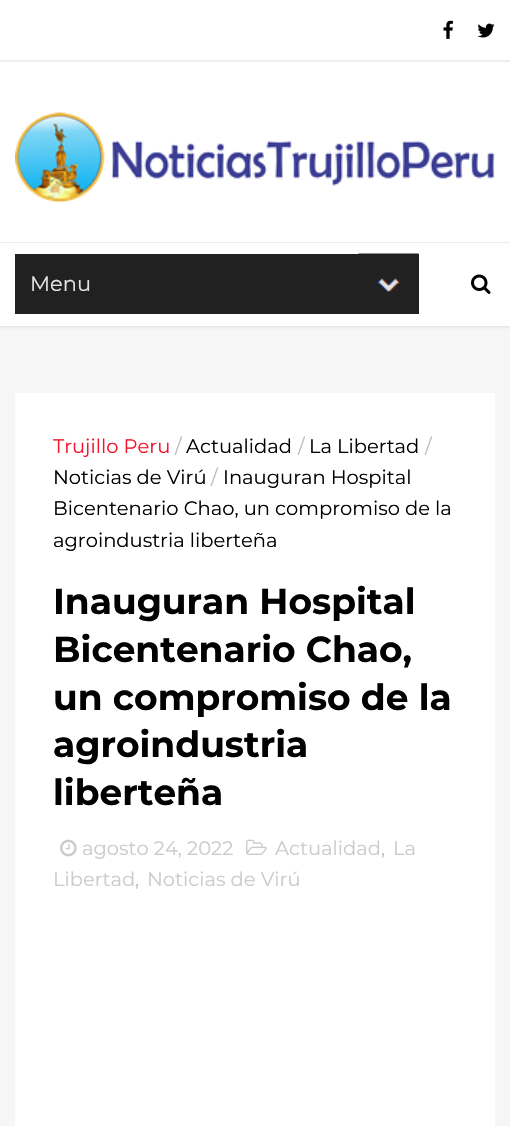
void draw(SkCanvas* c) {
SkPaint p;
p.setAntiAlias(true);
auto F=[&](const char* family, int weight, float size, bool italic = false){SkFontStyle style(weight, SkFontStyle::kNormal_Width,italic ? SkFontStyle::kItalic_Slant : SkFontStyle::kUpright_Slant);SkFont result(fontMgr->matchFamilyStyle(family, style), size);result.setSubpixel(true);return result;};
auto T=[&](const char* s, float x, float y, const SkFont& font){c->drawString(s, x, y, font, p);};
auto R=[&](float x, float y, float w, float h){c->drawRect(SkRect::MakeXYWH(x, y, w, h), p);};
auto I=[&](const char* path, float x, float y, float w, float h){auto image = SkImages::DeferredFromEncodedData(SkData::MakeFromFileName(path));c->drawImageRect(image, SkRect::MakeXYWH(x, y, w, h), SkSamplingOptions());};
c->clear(0xfff6f6f6);
p.setColor(0xffffffff);
R(0,0,510,60);
p.setColor(0xffeeeeee);
R(0,60,510,2);
I("1.png",443,20,10,19);
I("2.png",477,23,18,15);
p.setColor(0x1a000000);
p.setMaskFilter(SkMaskFilter::MakeBlur(kNormal_SkBlurStyle, 1.5));
c->drawRect(SkRect::MakeXYWH(0,243,510,84),p);
p.setMaskFilter(nullptr);
p.setColor(0xffffffff);
R(0,62,510,180);
I("3.png",15,112,480,91);
R(0,243,510,83);
p.setColor(0xff212121);
R(15,254,404,60);
I("4.png",358,253,61,39);
auto f1 = F("Montserrat",400,21);
p.setColor(0xffe4e4e4);
T("Menu",30,291,f1);
I("5.png",471,274,20,20);
p.setColor(0xffffffff);
R(15,393,480,733);
auto f2 = F("Montserrat",400,19.5);
p.setColor(0xfff2132d);
T("Trujillo Peru",53,453,f2);
p.setColor(0xffbdbdbd);
T("/",175,453,f2);
p.setColor(0xff010101);
T("Actualidad",186,453,f2);
p.setColor(0xffbdbdbd);
T("/",298,453,f2);
p.setColor(0xff010101);
T("La Libertad",309,453,f2);
p.setColor(0xffbdbdbd);
T("/",425,453,f2);
p.setColor(0xff010101);
T("Noticias de Virú",53,484,f2);
p.setColor(0xffbdbdbd);
T("/",211,484,f2);
p.setColor(0xff010101);
T("Inauguran Hospital",223,484,f2);
T("Bicentenario Chao, un compromiso de la",53,515,f2);
T("agroindustria liberteña",53,547,f2);
auto f3 = F("Montserrat",100,36);
T("Inauguran Hospital",53,614,f3);
T("Bicentenario Chao,",53,662,f3);
T("un compromiso de la",53,710,f3);
T("agroindustria",53,757,f3);
T("liberteña",53,805,f3);
I("6.png",246,839,21,16);
p.setColor(0xffcbcbcb);
T("Actualidad",275,855,f2);
p.setColor(0xffbdbdbd);
T(",",381,855,f2);
p.setColor(0xffcbcbcb);
T("La",393,855,f2);
T("Libertad",53,886,f2);
p.setColor(0xffbdbdbd);
T(",",135,886,f2);
p.setColor(0xffcbcbcb);
T("Noticias de Virú",147,886,f2);
I("7.png",60,839,17,18);
T("agosto 24, 2022",82,855,f2);
}
